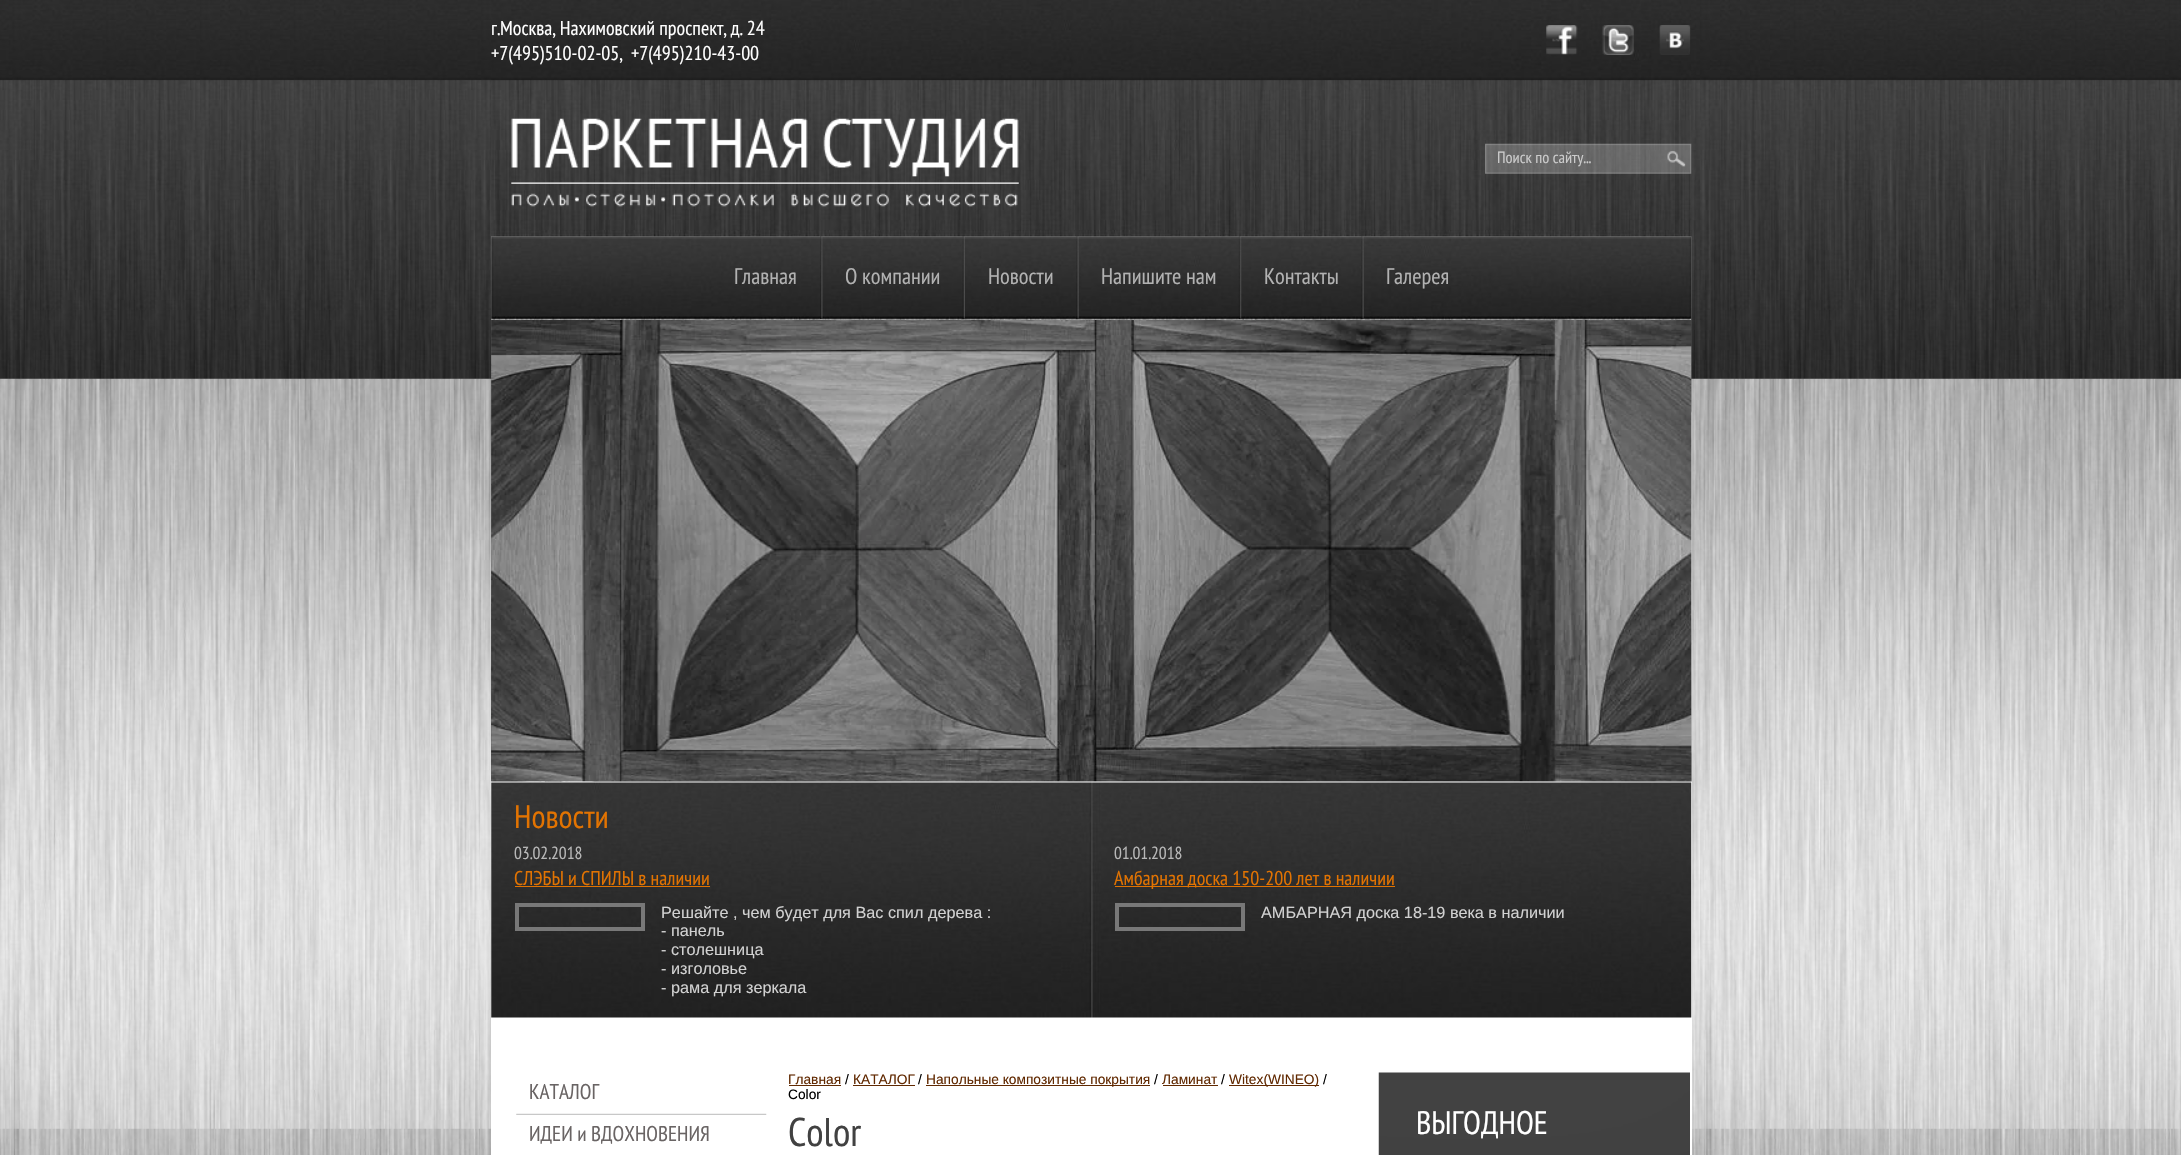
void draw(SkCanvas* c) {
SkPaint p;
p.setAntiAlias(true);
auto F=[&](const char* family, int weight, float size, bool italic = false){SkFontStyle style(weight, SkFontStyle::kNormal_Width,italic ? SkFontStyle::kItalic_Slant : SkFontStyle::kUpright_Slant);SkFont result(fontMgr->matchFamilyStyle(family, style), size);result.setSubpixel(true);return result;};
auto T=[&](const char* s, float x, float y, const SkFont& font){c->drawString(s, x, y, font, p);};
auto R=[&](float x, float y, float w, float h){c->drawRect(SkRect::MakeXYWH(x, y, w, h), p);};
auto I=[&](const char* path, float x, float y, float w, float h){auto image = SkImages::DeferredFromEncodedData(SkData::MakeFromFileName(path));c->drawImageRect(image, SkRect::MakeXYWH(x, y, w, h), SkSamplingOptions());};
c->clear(0xffffffff);
I("1.png",0,378,2181,777);
I("2.png",0,0,2181,379);
p.setColor(0xffffffff);
R(491,782,1201,373);
I("3.png",491,0,1201,783);
auto f1 = F("PT Sans Narrow",400,20);
T("г.Москва, Нахимовский проспект, д. 24",491,35,f1);
T("+7(495)510-02-05,  +7(495)210-43-00",491,60,f1);
I("4.png",1546,25,32,30);
I("5.png",1602,25,32,30);
I("6.png",1659,25,32,30);
I("7.png",511,118,508,89);
I("8.png",1485,143,207,31);
c->save();
c->clipRect(SkRect::MakeXYWH(1498,150,156,20));
auto f2 = F("PT Sans Narrow",400,16.25);
p.setColor(0xffcbcbcb);
T("Поиск по сайту...",1497,163,f2);
c->restore();
I("9.png",491,236,1201,83);
auto f3 = F("PT Sans Narrow",400,22.5);
p.setColor(0xffb2b2b2);
T("Главная",734,284,f3);
I("10.png",820,236,3,83);
T("О компании",845,284,f3);
I("11.png",962,236,3,83);
T("Новости",988,284,f3);
I("12.png",1076,236,3,83);
T("Напишите нам",1101,284,f3);
I("13.png",1238,236,4,83);
T("Контакты",1264,284,f3);
I("14.png",1361,236,3,83);
T("Галерея",1386,284,f3);
I("15.png",491,320,1201,462);
I("16.png",491,782,1201,236);
auto f4 = F("PT Sans Narrow",400,32.5);
p.setColor(0xffe27301);
T("Новости",514,828,f4);
auto f5 = F("PT Sans Narrow",400,17.5);
p.setColor(0xffb8b8b8);
T("03.02.2018",514,859,f5);
p.setColor(0xffe27301);
T("СЛЭБЫ и СПИЛЫ в наличии",514,885,f1);
R(515,886,195,1);
p.setStroke(true);
p.setStrokeWidth(4);
p.setColor(0xff787878);
c->drawRect(SkRect::MakeXYWH(517,905,126,24),p);
auto f6 = F("Liberation Sans",400,16.25);
p.setStroke(false);
p.setColor(0xffd1d1d1);
T("Решайте , чем будет для Вас спил дерева :",661,918,f6);
T("- панель",661,936,f6);
T("- столешница",661,955,f6);
T("- изголовье",661,974,f6);
T("- рама для зеркала",661,993,f6);
p.setColor(0xffb8b8b8);
T("01.01.2018",1114,859,f5);
p.setColor(0xffe27301);
R(1115,886,280,1);
T("Амбарная доска 150-200 лет в наличии",1114,885,f1);
p.setStroke(true);
p.setColor(0xff787878);
c->drawRect(SkRect::MakeXYWH(1117,905,126,24),p);
p.setStroke(false);
p.setColor(0xffd1d1d1);
T("АМБАРНАЯ доска 18-19 века в наличии",1261,918,f6);
auto f7 = F("PT Sans Narrow",400,21.25);
p.setColor(0xff696464);
T("КАТАЛОГ",529,1099,f7);
I("17.png",516,1113,251,2);
T("ИДЕИ и ВДОХНОВЕНИЯ",529,1141,f7);
auto f8 = F("Liberation Sans",400,13.75);
p.setColor(0xff612901);
T("Главная",788,1084,f8);
R(789,1085,52,1);
p.setColor(0xff000000);
T("/",845,1084,f8);
p.setColor(0xff612901);
T("КАТАЛОГ",853,1084,f8);
R(853,1085,62,1);
p.setColor(0xff000000);
T("/",918,1084,f8);
p.setColor(0xff612901);
R(926,1085,224,1);
T("Напольные композитные покрытия",926,1084,f8);
p.setColor(0xff000000);
T("/",1154,1084,f8);
p.setColor(0xff612901);
T("Ламинат",1162,1084,f8);
R(1163,1085,55,1);
p.setColor(0xff000000);
T("/",1221,1084,f8);
p.setColor(0xff612901);
R(1229,1085,90,1);
T("Witex(WINEO)",1229,1084,f8);
p.setColor(0xff000000);
T("/",1323,1084,f8);
T("Color",788,1099,f8);
auto f9 = F("PT Sans Narrow",400,40);
p.setColor(0xff414141);
T("Color",788,1146,f9);
I("18.png",1378,1071,312,84);
p.setColor(0xffffffff);
T("ВЫГОДНОЕ",1416,1134,f4);
}
